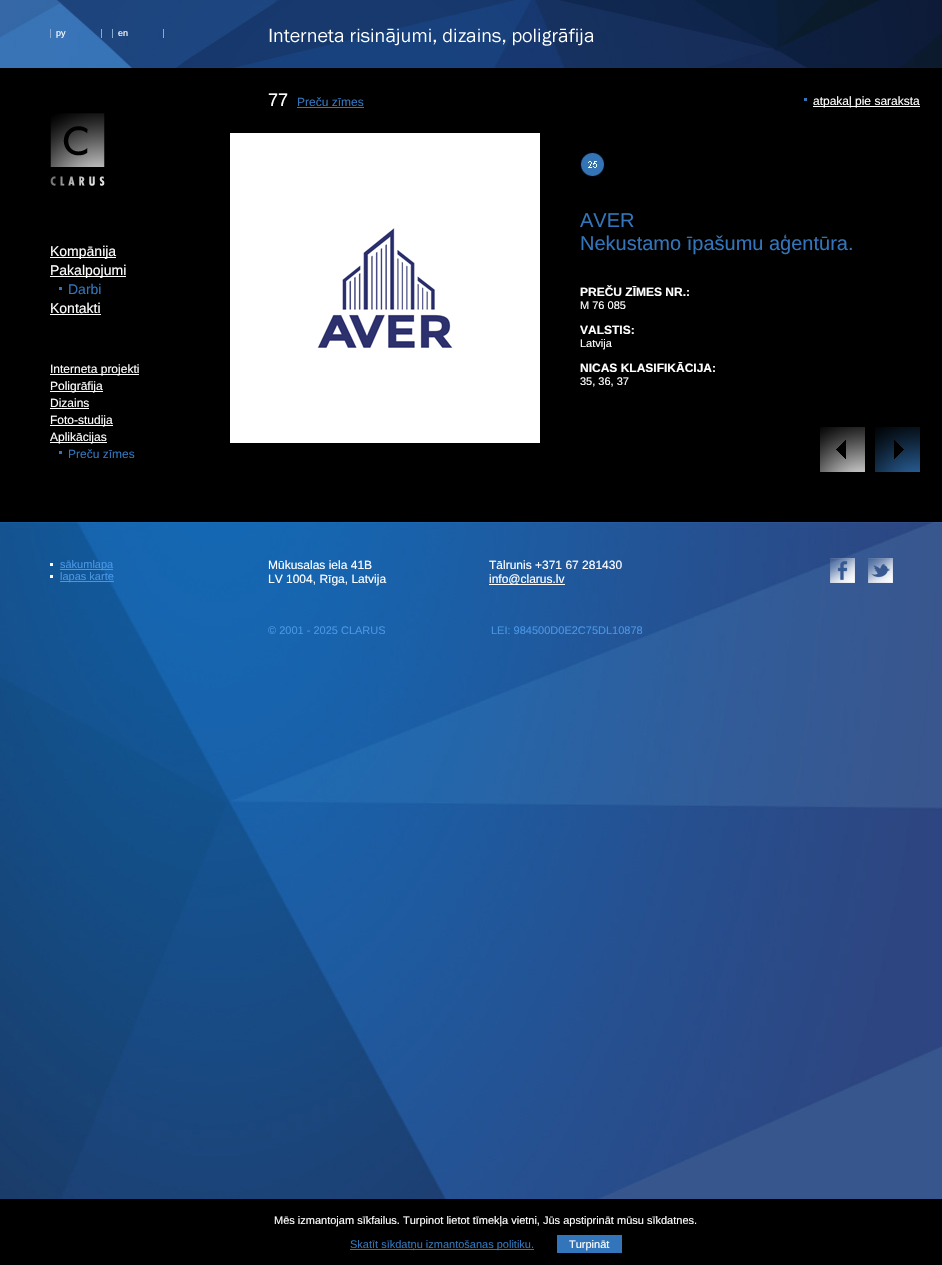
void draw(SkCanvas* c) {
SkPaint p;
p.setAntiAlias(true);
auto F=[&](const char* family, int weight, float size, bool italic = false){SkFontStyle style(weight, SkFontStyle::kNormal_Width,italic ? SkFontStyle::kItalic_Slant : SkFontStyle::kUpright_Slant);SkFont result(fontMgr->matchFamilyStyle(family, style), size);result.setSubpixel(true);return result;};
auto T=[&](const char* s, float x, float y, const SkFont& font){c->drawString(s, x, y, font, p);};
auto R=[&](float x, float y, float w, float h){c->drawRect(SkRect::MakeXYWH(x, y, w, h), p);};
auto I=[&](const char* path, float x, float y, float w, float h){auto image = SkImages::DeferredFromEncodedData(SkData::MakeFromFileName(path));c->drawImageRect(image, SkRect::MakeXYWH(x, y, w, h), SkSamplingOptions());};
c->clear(0xff000000);
I("1.png",0,0,942,68);
p.setColor(0xff87acd4);
R(50,29,1,9);
auto f1 = F("Liberation Sans",400,9);
p.setColor(0xffffffff);
T("ру",56,36,f1);
p.setColor(0xff87acd4);
R(101,29,1,9);
R(112,29,1,9);
p.setColor(0xffffffff);
T("en",118,36,f1);
p.setColor(0xff87acd4);
R(163,29,1,9);
I("2.png",269,28,325,18);
I("3.png",50,113,55,73);
p.setColor(0xffffffff);
R(50,257,66,1);
auto f2 = F("Liberation Sans",400,14);
T("Kompānija",50,256,f2);
R(50,276,76,1);
T("Pakalpojumi",50,275,f2);
p.setColor(0xff3275ba);
R(59,287,3,3);
T("Darbi",68,294,f2);
p.setColor(0xffffffff);
T("Kontakti",50,313,f2);
R(50,314,51,1);
R(50,374,89,1);
auto f3 = F("Liberation Sans",400,12);
T("Interneta projekti",50,373,f3);
R(50,391,53,1);
T("Poligrāfija",50,390,f3);
T("Dizains",50,407,f3);
R(50,408,39,1);
R(50,425,63,1);
T("Foto-studija",50,424,f3);
R(50,442,57,1);
T("Aplikācijas",50,441,f3);
p.setColor(0xff3275ba);
R(59,451,3,3);
T("Preču zīmes",68,458,f3);
auto f4 = F("Liberation Sans",400,18);
p.setColor(0xffffffff);
T("77",268,106,f4);
p.setColor(0xff3275ba);
T("Preču zīmes",297,106,f3);
R(297,107,67,1);
R(804,98,3,3);
p.setColor(0xffffffff);
R(813,106,107,1);
T("atpakaļ pie saraksta",813,105,f3);
R(230,133,310,310);
I("4.png",317,228,137,122);
I("5.png",580,152,25,25);
auto f5 = F("Liberation Sans",400,20);
p.setColor(0xff3275ba);
T("AVER",580,227,f5);
T("Nekustamo īpašumu aģentūra.",580,250,f5);
auto f6 = F("Liberation Sans",700,12);
p.setColor(0xffffffff);
T("PREČU ZĪMES NR.:",580,296,f6);
auto f7 = F("Liberation Sans",400,11);
T("M 76 085",580,309,f7);
T("VALSTIS:",580,334,f6);
T("Latvija",580,347,f7);
T("NICAS KLASIFIKĀCIJA:",580,372,f6);
T("35, 36, 37",580,385,f7);
I("6.png",820,427,45,45);
I("7.png",875,427,45,45);
I("8.png",0,522,942,677);
R(50,563,3,3);
p.setColor(0xff4996e5);
R(60,569,53,1);
T("sākumlapa",60,568,f7);
p.setColor(0xffffffff);
R(50,575,3,3);
p.setColor(0xff4996e5);
R(60,581,54,1);
T("lapas karte",60,580,f7);
p.setColor(0xffffffff);
T("Mūkusalas iela 41B",268,569,f3);
T("LV 1004, Rīga, Latvija",268,583,f3);
p.setColor(0xff4996e5);
T("© 2001 - 2025 CLARUS",268,634,f7);
T("LEI: 984500D0E2C75DL10878",491,634,f7);
I("9.png",830,558,25,25);
I("10.png",868,558,25,25);
p.setColor(0xffffffff);
T("Tālrunis +371 67 281430",489,569,f3);
R(489,584,76,1);
T("info@clarus.lv",489,583,f3);
T("Mēs izmantojam sīkfailus. Turpinot lietot tīmekļa vietni, Jūs apstiprināt mūsu sīkdatnes.",274,1224,f7);
p.setColor(0xff3275ba);
R(350,1249,184,1);
T("Skatīt sīkdatņu izmantošanas politiku.",350,1248,f7);
R(557,1235,65,18);
p.setColor(0xffffffff);
T("Turpināt",569,1248,f7);
}
